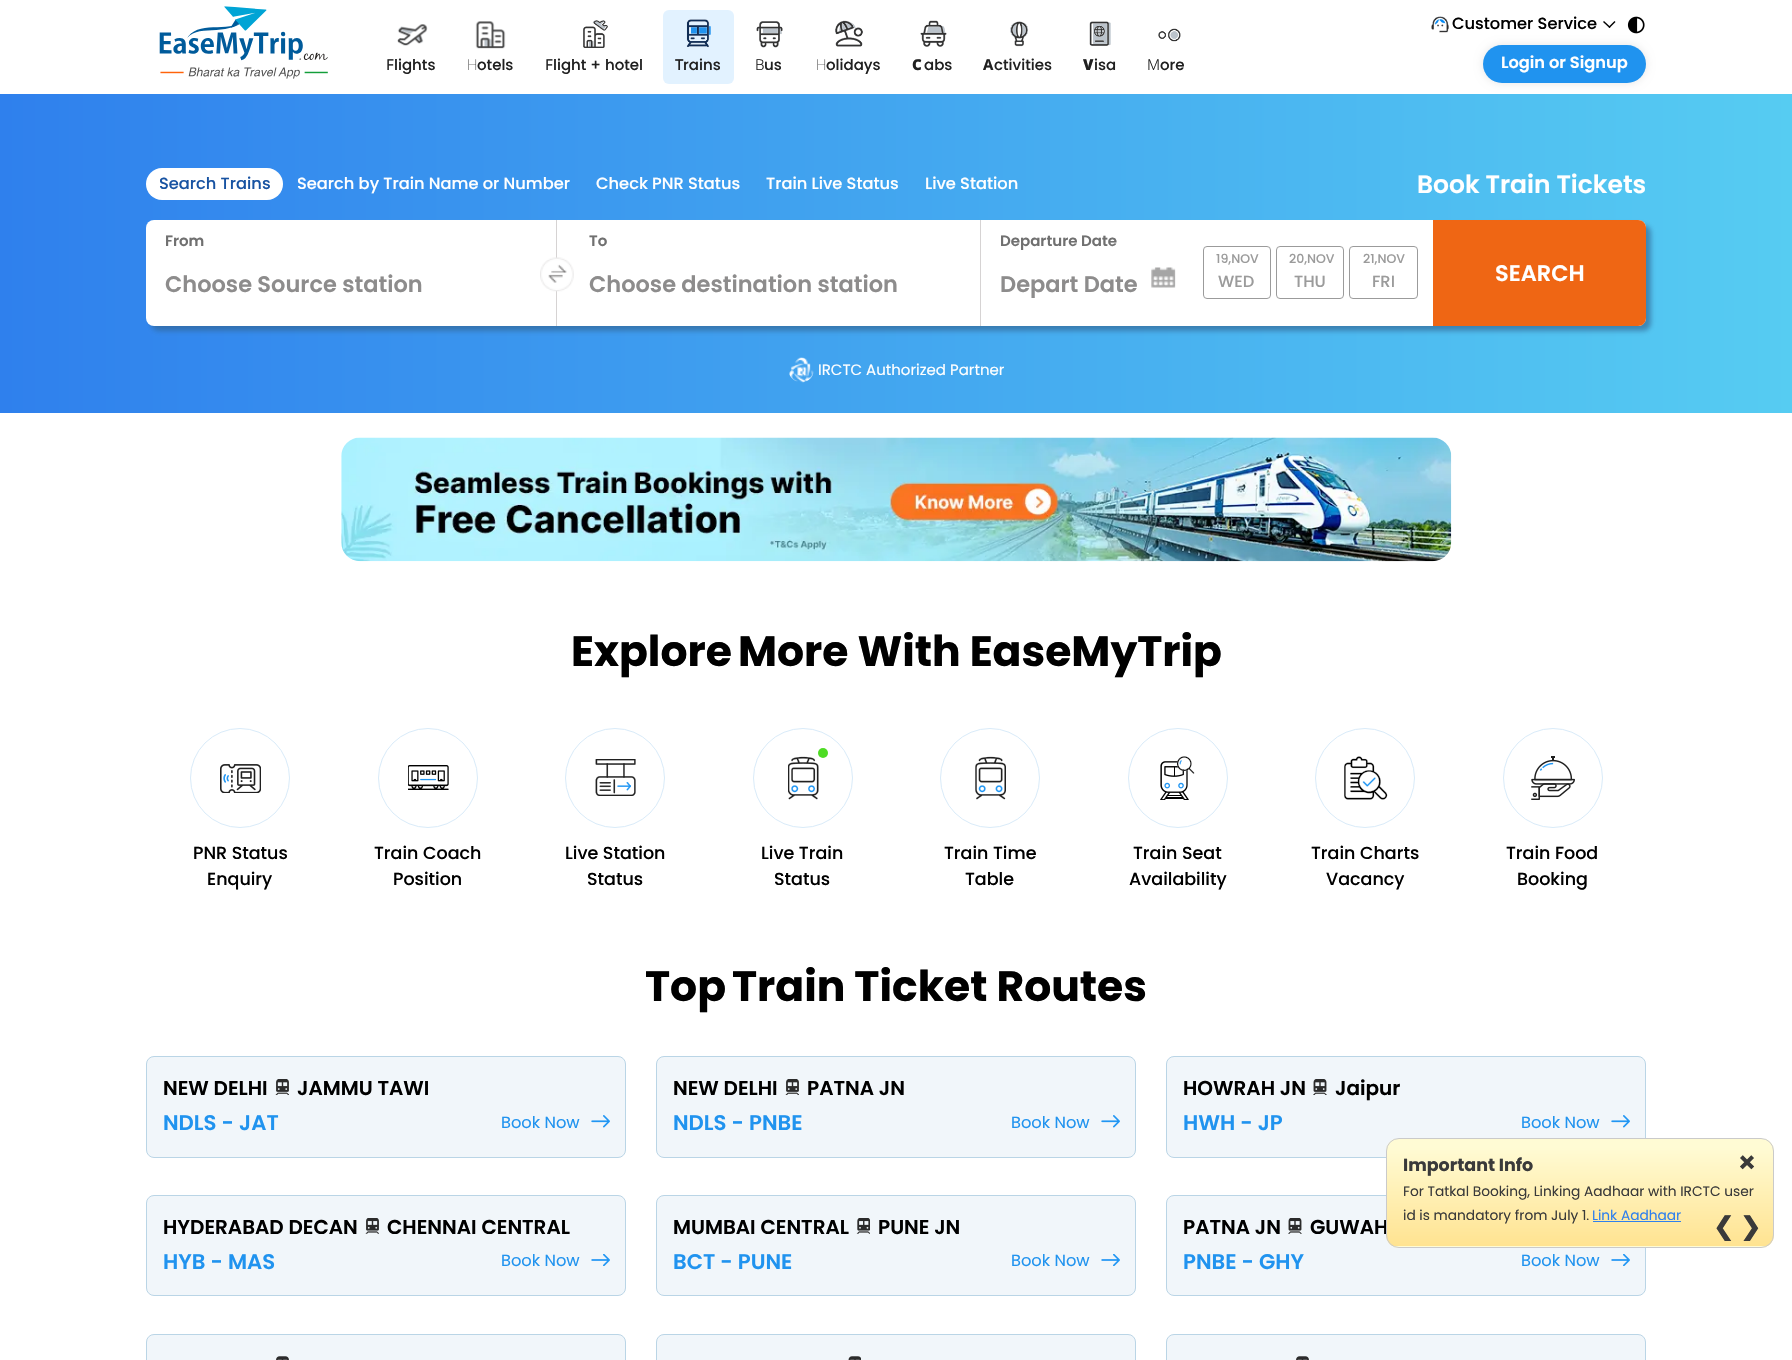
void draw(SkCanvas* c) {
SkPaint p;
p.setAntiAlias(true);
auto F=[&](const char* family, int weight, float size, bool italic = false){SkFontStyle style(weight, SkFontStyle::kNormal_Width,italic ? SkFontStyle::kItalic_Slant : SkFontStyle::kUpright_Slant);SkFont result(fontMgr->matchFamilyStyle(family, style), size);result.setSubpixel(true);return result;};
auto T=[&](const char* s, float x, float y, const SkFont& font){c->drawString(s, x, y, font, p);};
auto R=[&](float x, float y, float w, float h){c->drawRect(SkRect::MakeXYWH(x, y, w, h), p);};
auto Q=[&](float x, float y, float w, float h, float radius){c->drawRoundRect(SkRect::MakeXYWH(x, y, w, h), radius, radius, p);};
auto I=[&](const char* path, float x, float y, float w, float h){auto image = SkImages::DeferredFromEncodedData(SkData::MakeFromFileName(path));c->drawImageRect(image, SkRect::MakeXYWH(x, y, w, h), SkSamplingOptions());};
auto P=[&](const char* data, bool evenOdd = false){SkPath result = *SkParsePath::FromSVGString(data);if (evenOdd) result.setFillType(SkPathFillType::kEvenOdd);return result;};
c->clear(0xffffffff);
I("1.png",159,6,169,73);
I("2.png",397,24,31,22);
auto f1 = F("Noto Sans",400,15);
p.setColor(0xff202020);
T("F",386,70,f1);
auto f2 = F("Poppins",500,15);
T("lights",394,70,f2);
I("3.png",475,21,31,28);
auto f3 = F("Noto Sans",100,15);
T("H",467,70,f3);
T("otels",477,70,f2);
I("4.png",583,20,25,28);
T("F",545,70,f1);
T("light + hotel",553,70,f2);
p.setColor(0xffe2f2ff);
Q(663,10,71,74,6);
I("5.png",686,19,25,29);
auto f4 = F("Noto Sans",500,15);
p.setColor(0xff202020);
T("T",675,70,f4);
T("rains",683,70,f2);
I("6.png",756,21,27,27);
auto f5 = F("Noto Sans",300,15);
T("B",755,70,f5);
T("us",764,70,f2);
I("7.png",835,20,28,27);
T("H",816,70,f3);
T("olidays",826,70,f2);
I("8.png",920,20,27,27);
auto f6 = F("Noto Sans",900,15);
T("C",912,70,f6);
T("abs",924,70,f2);
I("9.png",1010,21,19,26);
auto f7 = F("Noto Sans",700,15);
T("A",983,70,f7);
T("ctivities",994,70,f2);
I("10.png",1089,21,22,25);
T("V",1083,70,f6);
T("isa",1094,70,f2);
I("11.png",1158,28,23,14);
T("M",1147,70,f5);
T("ore",1160,70,f2);
I("12.png",1431,16,18,17);
auto f8 = F("Poppins",500,16.25);
p.setColor(0xff000000);
T("Customer Service",1452,29,f8);
c->drawPath(P("M1614.5 21l1 1l-6 6l-1-1z"),p);
c->drawPath(P("M1604 21l6.5 6l-1 1l-6.5-6z"),p);
I("13.png",1627,16,18,18);
p.setColor(0x1a000000);
p.setMaskFilter(SkMaskFilter::MakeBlur(kNormal_SkBlurStyle, 4.5));
c->drawRoundRect(SkRect::MakeXYWH(1483,45,163,38),19,19,p);
p.setMaskFilter(nullptr);
p.setColor(0xff2093ef);
Q(1483,45,163,38,19);
auto f9 = F("Poppins",600,16.25);
p.setColor(0xffffffff);
T("Login or Signup",1501,68,f9);
{
const SkColor colors[] = {0xff2f80ed,0xff56ccf2};
const float stops[] = {0,1};
const SkPoint ends[] = {{0,253}, {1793,253}};
p.setShader(SkGradientShader::MakeLinear(ends, colors, stops, 2, SkTileMode::kClamp));
p.setAlpha(255);
}
R(0,94,1792,319);
p.setShader(nullptr);
p.setColor(0xffffffff);
Q(146,168,137,32,16);
p.setColor(0xff1853a2);
T("Search Trains",159,189,f8);
p.setColor(0xffffffff);
T("Search by Train Name or Number",297,189,f8);
T("Check PNR Status",596,189,f8);
T("Train Live Status",766,189,f8);
T("Live Station",925,189,f8);
auto f10 = F("Poppins",600,25);
T("Book Train Tickets",1417,193,f10);
p.setColor(0xa3316290);
p.setMaskFilter(SkMaskFilter::MakeBlur(kNormal_SkBlurStyle, 2.5));
c->drawRoundRect(SkRect::MakeXYWH(151,225,1500,106),8,8,p);
p.setMaskFilter(nullptr);
p.setColor(0xffffffff);
Q(146,220,1500,106,8);
p.setColor(0xffd6d3d3);
R(556,220,1,106);
auto f11 = F("Poppins",600,15);
p.setColor(0xff707070);
T("From",165,246,f11);
auto f12 = F("Poppins",600,22.5);
p.setColor(0xff8d8c8c);
T("Choose Source station",165,292,f12);
I("14.png",540,257,34,35);
p.setColor(0xffd6d3d3);
R(980,220,1,106);
p.setColor(0xff707070);
T("To",589,246,f11);
p.setColor(0xff8d8c8c);
T("Choose destination station",589,292,f12);
p.setColor(0xff707070);
T("Departure Date",1000,246,f11);
p.setColor(0xff8d8c8c);
T("Depart Date",1000,292,f12);
I("15.png",1151,267,25,21);
p.setStroke(true);
p.setStrokeWidth(1);
p.setColor(0xff9b9b9b);
c->drawRoundRect(SkRect::MakeXYWH(1203.5,246.5,67,52),3.5,3.5,p);
auto f13 = F("Poppins",500,12.5);
p.setStroke(false);
T("19,NOV",1216,263,f13);
T("WED",1218,287,f8);
p.setStroke(true);
c->drawRoundRect(SkRect::MakeXYWH(1276.5,246.5,67,52),3.5,3.5,p);
p.setStroke(false);
T("20,NOV",1289,263,f13);
T("THU",1294,287,f8);
p.setStroke(true);
c->drawRoundRect(SkRect::MakeXYWH(1349.5,246.5,68,52),3.5,3.5,p);
p.setStroke(false);
T("21,NOV",1363,263,f13);
T("FRI",1372,287,f8);
p.setColor(0xffef6614);
c->drawPath(P("M1433 220h205c4.5 0 8 3.5 8 8v90c0 4.5-3.5 8-8 8h-205z"),p);
p.setColor(0xffffffff);
T("SEARCH",1495,281,f12);
I("16.png",789,357,25,26);
auto f14 = F("Poppins",400,15);
T("IRCTC Authorized Partner",818,375,f14);
p.setColor(0xfff1f6fa);
c->drawRoundRect(SkRect::MakeXYWH(1166.5,1056.5,479,101),7.5,7.5,p);
p.setStroke(true);
p.setColor(0xffbad5e6);
c->drawRoundRect(SkRect::MakeXYWH(1166.5,1056.5,479,101),7.5,7.5,p);
p.setStroke(false);
p.setColor(0xfff1f6fa);
c->drawRoundRect(SkRect::MakeXYWH(1166.5,1195.5,479,100),7.5,7.5,p);
p.setStroke(true);
p.setColor(0xffbad5e6);
c->drawRoundRect(SkRect::MakeXYWH(1166.5,1195.5,479,100),7.5,7.5,p);
auto f15 = F("Poppins",600,20);
p.setStroke(false);
p.setColor(0xff000000);
T("GUWAH",1310,1234,f15);
c->save();
c->clipPath(P("M1399 1138h362c7 0 13 6 13 13v84c0 7-6 13-13 13h-362c-7 0-13-6-13-13v-84c0-7 6-13 13-13z"),true);
{
const SkColor colors[] = {0xfffffbd4,0xffffe391};
const float stops[] = {.08,1};
const SkPoint ends[] = {{1580,1139}, {1580,1246}};
p.setShader(SkGradientShader::MakeLinear(ends, colors, stops, 2, SkTileMode::kClamp));
p.setAlpha(255);
}
R(1386,1139,388,107);
{
const SkColor colors[] = {0xfffffbd4,0xffffe391};
const float stops[] = {.08,1};
const SkPoint ends[] = {{1580,1246}, {1580,1354}};
p.setShader(SkGradientShader::MakeLinear(ends, colors, stops, 2, SkTileMode::kClamp));
p.setAlpha(255);
}
R(1386,1246,388,2);
c->restore();
p.setStroke(true);
p.setShader(nullptr);
p.setColor(0xffcacaca);
c->drawRoundRect(SkRect::MakeXYWH(1386.5,1138.5,387,109),12.5,12.5,p);
auto f16 = F("Poppins",700,17.5);
p.setStroke(false);
p.setColor(0xff3a3a3a);
T("Important Info",1403,1171,f16);
auto f17 = F("Poppins",600,30);
T("×",1737,1173,f17);
auto f18 = F("Poppins",400,13.75);
T("For Tatkal Booking, Linking Aadhaar with IRCTC user",1403,1196,f18);
T("id is mandatory from July 1.",1403,1220,f18);
p.setColor(0xff2f80ed);
T("Link Aadhaar",1592,1220,f18);
R(1593,1221,88,1);
auto f19 = F("DejaVu Sans",700,25);
p.setColor(0xff3a3a3a);
T("❮",1713,1235,f19);
T("❯",1740,1235,f19);
I("17.png",341,437,1111,125);
auto f20 = F("Poppins",700,42.5);
p.setColor(0xff000000);
T("Explore",571,666,f20);
T("More With EaseMyTrip",738,666,f20);
p.setStroke(true);
p.setColor(0xffd9ebf9);
c->drawCircle(240,778,49.5,p);
I("18.png",220,764,41,29);
auto f21 = F("Poppins",500,17.5);
p.setStroke(false);
p.setColor(0xff000000);
T("PNR Status",193,859,f21);
T("Enquiry",207,885,f21);
p.setStroke(true);
p.setColor(0xffd9ebf9);
c->drawCircle(428,778,49.5,p);
I("19.png",408,765,41,25);
p.setStroke(false);
p.setColor(0xff000000);
T("Train Coach",374,859,f21);
T("Position",393,885,f21);
p.setStroke(true);
p.setColor(0xffd9ebf9);
c->drawCircle(615,778,49.5,p);
I("20.png",595,759,41,37);
p.setStroke(false);
p.setColor(0xff000000);
T("Live Station",565,859,f21);
T("Status",587,885,f21);
p.setStroke(true);
p.setColor(0xffd9ebf9);
c->drawCircle(803,778,49.5,p);
I("21.png",788,756,31,44);
p.setStroke(false);
p.setColor(0xff4edc24);
c->drawCircle(823,753,5,p);
p.setColor(0xff000000);
T("Live Train",761,859,f21);
T("Status",774,885,f21);
p.setStroke(true);
p.setColor(0xffd9ebf9);
c->drawCircle(990,778,49.5,p);
I("22.png",975,756,31,44);
p.setStroke(false);
p.setColor(0xff000000);
T("Train Time",944,859,f21);
T("Table",965,885,f21);
p.setStroke(true);
p.setColor(0xffd9ebf9);
c->drawCircle(1178,778,49.5,p);
I("23.png",1160,756,35,44);
p.setStroke(false);
p.setColor(0xff000000);
T("Train Seat",1133,859,f21);
T("Availability",1129,885,f21);
p.setStroke(true);
p.setColor(0xffd9ebf9);
c->drawCircle(1365,778,49.5,p);
I("24.png",1344,756,44,44);
p.setStroke(false);
p.setColor(0xff000000);
T("Train Charts",1311,859,f21);
T("Vacancy",1326,885,f21);
p.setStroke(true);
p.setColor(0xffd9ebf9);
c->drawCircle(1553,778,49.5,p);
I("25.png",1531,756,44,44);
p.setStroke(false);
p.setColor(0xff000000);
T("Train Food",1506,859,f21);
T("Booking",1517,885,f21);
T("Top",645,1001,f20);
T("Train Ticket Routes",732,1001,f20);
p.setColor(0xfff1f6fa);
c->drawRoundRect(SkRect::MakeXYWH(146.5,1056.5,479,101),7.5,7.5,p);
p.setStroke(true);
p.setColor(0xffbad5e6);
c->drawRoundRect(SkRect::MakeXYWH(146.5,1056.5,479,101),7.5,7.5,p);
p.setStroke(false);
p.setColor(0xff000000);
T("NEW DELHI",163,1095,f15);
I("26.png",275,1079,14,16);
T("JAMMU TAWI",297,1095,f15);
auto f22 = F("Poppins",600,21.25);
p.setColor(0xff2093ef);
T("NDLS - JAT",163,1130,f22);
auto f23 = F("Poppins",400,16.25);
T("Book Now",501,1128,f23);
I("27.png",591,1115,19,13);
p.setColor(0xfff1f6fa);
c->drawRoundRect(SkRect::MakeXYWH(656.5,1056.5,479,101),7.5,7.5,p);
p.setStroke(true);
p.setColor(0xffbad5e6);
c->drawRoundRect(SkRect::MakeXYWH(656.5,1056.5,479,101),7.5,7.5,p);
p.setStroke(false);
p.setColor(0xff000000);
T("NEW DELHI",673,1095,f15);
I("26.png",785,1079,14,16);
T("PATNA JN",807,1095,f15);
p.setColor(0xff2093ef);
T("NDLS - PNBE",673,1130,f22);
T("Book Now",1011,1128,f23);
I("27.png",1101,1115,19,13);
p.setColor(0xff000000);
T("HOWRAH JN",1183,1095,f15);
I("28.png",1313,1079,14,16);
T("Jaipur",1335,1095,f15);
p.setColor(0xff2093ef);
T("HWH - JP",1183,1130,f22);
T("Book Now",1521,1128,f23);
I("27.png",1611,1115,19,13);
p.setColor(0xfff1f6fa);
c->drawRoundRect(SkRect::MakeXYWH(146.5,1195.5,479,100),7.5,7.5,p);
p.setStroke(true);
p.setColor(0xffbad5e6);
c->drawRoundRect(SkRect::MakeXYWH(146.5,1195.5,479,100),7.5,7.5,p);
p.setStroke(false);
p.setColor(0xff000000);
T("HYDERABAD DECAN",163,1234,f15);
I("29.png",365,1218,14,16);
T("CHENNAI CENTRAL",387,1234,f15);
p.setColor(0xff2093ef);
T("HYB - MAS",163,1269,f22);
T("Book Now",501,1266,f23);
I("30.png",591,1254,19,12);
p.setColor(0xfff1f6fa);
c->drawRoundRect(SkRect::MakeXYWH(656.5,1195.5,479,100),7.5,7.5,p);
p.setStroke(true);
p.setColor(0xffbad5e6);
c->drawRoundRect(SkRect::MakeXYWH(656.5,1195.5,479,100),7.5,7.5,p);
p.setStroke(false);
p.setColor(0xff000000);
T("MUMBAI CENTRAL",673,1234,f15);
I("31.png",856,1218,14,16);
T("PUNE JN",878,1234,f15);
p.setColor(0xff2093ef);
T("BCT - PUNE",673,1269,f22);
T("Book Now",1011,1266,f23);
I("30.png",1101,1254,19,12);
p.setColor(0xff000000);
T("PATNA JN",1183,1234,f15);
I("32.png",1288,1218,14,16);
p.setColor(0xff2093ef);
T("PNBE - GHY",1183,1269,f22);
T("Book Now",1521,1266,f23);
I("30.png",1611,1254,19,12);
p.setColor(0xfff1f6fa);
c->drawRoundRect(SkRect::MakeXYWH(146.5,1334.5,479,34),7.5,7.5,p);
p.setStroke(true);
p.setColor(0xffbad5e6);
c->drawRoundRect(SkRect::MakeXYWH(146.5,1334.5,479,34),7.5,7.5,p);
I("33.png",276,1356,13,4);
p.setStroke(false);
p.setColor(0xfff1f6fa);
c->drawRoundRect(SkRect::MakeXYWH(656.5,1334.5,479,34),7.5,7.5,p);
p.setStroke(true);
p.setColor(0xffbad5e6);
c->drawRoundRect(SkRect::MakeXYWH(656.5,1334.5,479,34),7.5,7.5,p);
I("34.png",848,1356,13,4);
p.setStroke(false);
p.setColor(0xfff1f6fa);
c->drawRoundRect(SkRect::MakeXYWH(1166.5,1334.5,479,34),7.5,7.5,p);
p.setStroke(true);
p.setColor(0xffbad5e6);
c->drawRoundRect(SkRect::MakeXYWH(1166.5,1334.5,479,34),7.5,7.5,p);
I("33.png",1296,1356,13,4);
}
